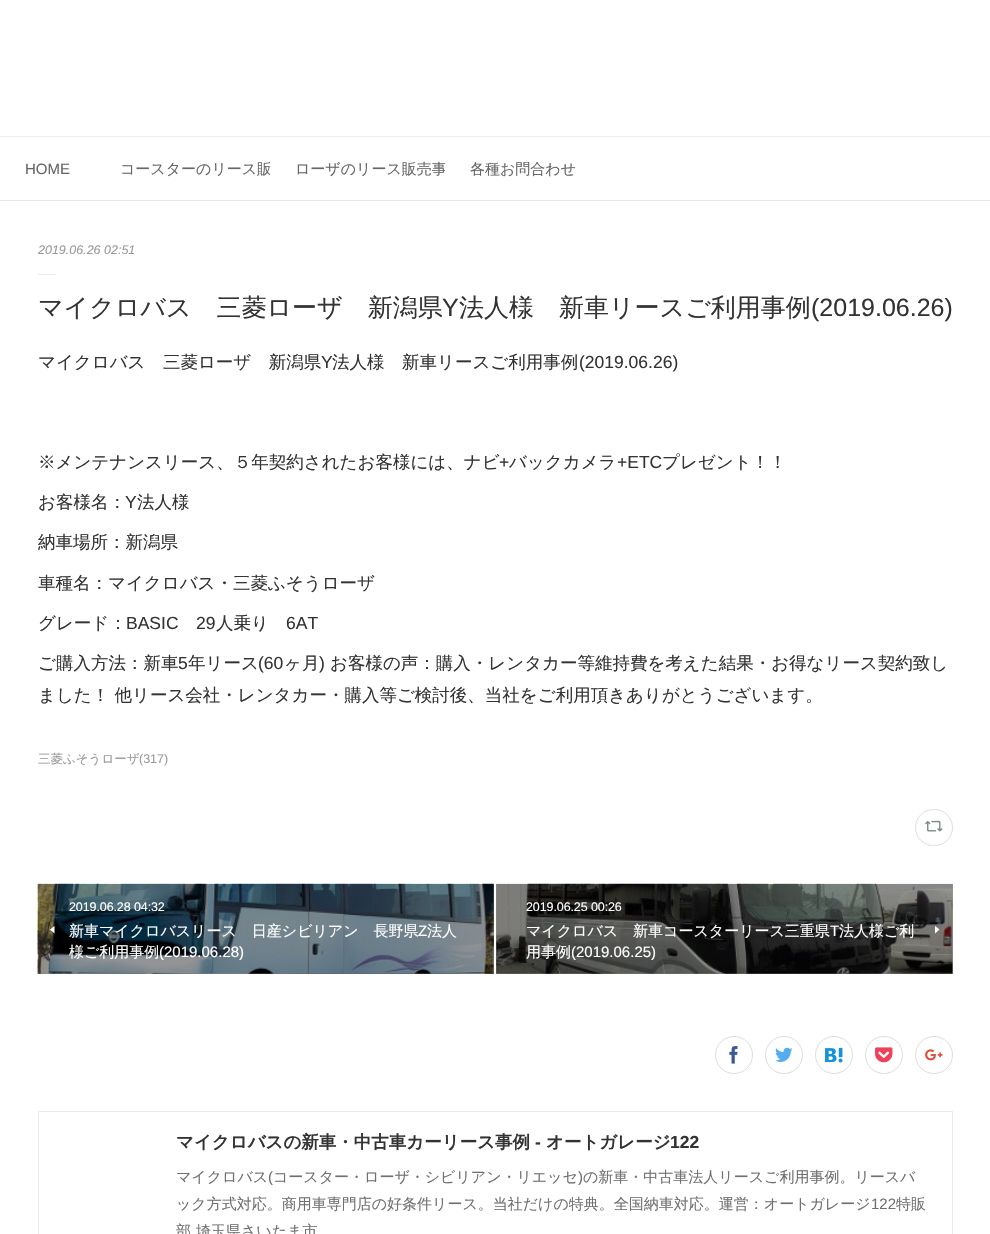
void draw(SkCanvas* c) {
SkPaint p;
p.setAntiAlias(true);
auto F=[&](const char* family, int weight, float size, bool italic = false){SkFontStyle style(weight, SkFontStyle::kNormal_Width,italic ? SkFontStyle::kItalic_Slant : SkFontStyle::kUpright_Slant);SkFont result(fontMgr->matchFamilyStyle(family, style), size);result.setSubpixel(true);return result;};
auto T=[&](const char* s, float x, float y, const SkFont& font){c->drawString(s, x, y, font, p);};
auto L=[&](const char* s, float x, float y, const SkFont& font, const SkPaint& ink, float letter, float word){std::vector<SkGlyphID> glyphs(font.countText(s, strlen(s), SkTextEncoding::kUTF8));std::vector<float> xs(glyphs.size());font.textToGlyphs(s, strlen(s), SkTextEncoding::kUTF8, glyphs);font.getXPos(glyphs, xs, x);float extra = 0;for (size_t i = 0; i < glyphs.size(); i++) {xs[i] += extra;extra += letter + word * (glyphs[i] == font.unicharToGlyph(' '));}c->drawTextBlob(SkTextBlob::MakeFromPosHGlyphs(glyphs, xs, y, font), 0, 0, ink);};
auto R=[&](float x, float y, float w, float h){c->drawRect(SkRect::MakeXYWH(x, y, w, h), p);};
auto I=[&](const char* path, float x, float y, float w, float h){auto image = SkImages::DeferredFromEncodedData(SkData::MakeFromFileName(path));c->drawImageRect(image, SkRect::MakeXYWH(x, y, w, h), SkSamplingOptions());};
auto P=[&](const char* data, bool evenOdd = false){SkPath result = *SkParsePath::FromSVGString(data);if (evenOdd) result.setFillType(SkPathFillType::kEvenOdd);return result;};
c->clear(0xffffffff);
p.setColor(0xff999999);
R(496,884,457,90);
R(38,884,456,90);
p.setColor(0xffeeeeee);
R(0,136,990,1);
p.setColor(0xffe6e6e6);
R(0,200,990,1);
auto f1 = F("Liberation Sans",400,15);
p.setColor(0xff666666);
T("HOME",25,174,f1);
c->save();
c->clipRect(SkRect::MakeXYWH(95,138,175,61));
auto f2 = F("WenQuanYi Zen Hei",500,15);
T("コースターのリース販",120,174,f2);
c->restore();
c->save();
c->clipRect(SkRect::MakeXYWH(270,138,175,61));
T("ローザのリース販売事",295,174,f2);
c->restore();
T("各種お問合わせ",470,174,f2);
auto f3 = F("Liberation Sans",400,12.5,true);
p.setColor(0xff999999);
T("2019.06.26 02:51",38,254,f3);
p.setColor(0xffebebeb);
R(38,274,18,1);
auto f4 = F("WenQuanYi Zen Hei",500,25);
p.setColor(0xff333333);
T("マイクロバス　三菱ローザ　新潟県",38,316,f4);
auto f5 = F("Liberation Sans",400,25);
T("Y",442,316,f5);
T("法人様　新車リースご利用事例",459,316,f4);
T("(2019.06.26)",811,316,f5);
auto f6 = F("WenQuanYi Zen Hei",500,17.5);
T("マイクロバス　三菱ローザ　新潟県",38,368,f6);
auto f7 = F("Liberation Sans",400,17.5);
T("Y",321,368,f7);
T("法人様　新車リースご利用事例",332,368,f6);
T("(2019.06.26)",579,368,f7);
T("※メンテナンスリース、５年契約されたお客様には、ナビ",38,468,f6);
T("+",499,468,f7);
T("バックカメラ",509,468,f6);
T("+ETC",617,468,f7);
T("プレゼント！！",662,468,f6);
T("お客様名：",38,508,f6);
T("Y",125,508,f7);
T("法人様",137,508,f6);
T("納車場所：新潟県",38,548,f6);
T("車種名：マイクロバス・三菱ふそうローザ",38,589,f6);
T("グレード：",38,629,f6);
T("BASIC",126,629,f7);
T("29",196,629,f7);
T("人乗り",216,629,f6);
T("6AT",286,629,f7);
T("ご購入方法：新車",38,669,f6);
T("5",178,669,f7);
T("年リース",188,669,f6);
T("(60",258,669,f7);
T("ヶ月",284,669,f6);
T(")",319,669,f7);
T("お客様の声：購入・レンタカー等維持費を考えた結果・お得なリース契約致し",330,669,f6);
T("ました！ 他リース会社・レンタカー・購入等ご検討後、当社をご利用頂きありがとうございます。",38,701,f6);
auto f8 = F("WenQuanYi Zen Hei",500,12.5);
p.setColor(0xff999999);
T("三菱ふそうローザ",38,763,f8);
auto f9 = F("Liberation Sans",400,12.5);
T("(317)",139,763,f9);
p.setStroke(true);
p.setStrokeWidth(1);
p.setColor(0xffdddddd);
c->drawRoundRect(SkRect::MakeXYWH(915.5,809.5,37,36),18,18,p);
I("1.png",925,820,18,12);
I("2.png",37,883,457,91);
p.setStroke(false);
p.setColor(0xffffffff);
L("2019.06.28 04:32",69,911,f9,p,-.1,0);
c->drawPath(P("M54.5 933.5v-7.5l-4.5 3.5z"),p);
T("新車マイクロバスリース　日産シビリアン　長野県",69,936,f2);
T("Z",418,936,f1);
T("法人",427,936,f2);
T("様ご利用事例",69,957,f2);
T("(2019.06.28)",159,957,f1);
I("3.png",496,883,457,91);
L("2019.06.25 00:26",526,911,f9,p,-.1,0);
T("マイクロバス　新車コースターリース三重県",526,936,f2);
T("T",830,936,f1);
T("法人様ご利",839,936,f2);
T("用事例",526,957,f2);
T("(2019.06.25)",571,957,f1);
c->drawPath(P("M935 926v7.5l4.5-4z"),p);
p.setStroke(true);
p.setColor(0xffdddddd);
c->drawCircle(734,1055,18.5,p);
I("4.png",729,1046,9,18);
c->drawCircle(784,1055,18.5,p);
I("5.png",775,1047,18,15);
c->drawCircle(834,1055,18.5,p);
I("6.png",825,1047,18,16);
c->drawCircle(884,1055,18.5,p);
I("7.png",875,1047,18,16);
c->drawCircle(934,1055,18.5,p);
I("8.png",925,1049,18,12);
p.setColor(0xffebebeb);
c->drawRect(SkRect::MakeXYWH(38.5,1111.5,914,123),p);
auto f10 = F("WenQuanYi Zen Hei",700,17.5);
p.setStroke(false);
p.setColor(0xff333333);
T("マイクロバスの新車・中古車カーリース事例",176,1148,f10);
auto f11 = F("Liberation Sans",700,17.5);
T("-",535,1148,f11);
T("オートガレージ",546,1148,f10);
T("122",670,1148,f11);
p.setColor(0xff707070);
T("マイクロバス",176,1182,f2);
T("(",268,1182,f1);
T("コースター・ローザ・シビリアン・リエッセ",273,1182,f2);
T(")",578,1182,f1);
T("の新車・中古車法人リースご利用事例。リースバ",583,1182,f2);
T("ック方式対応。商用車専門店の好条件リース。当社だけの特典。全国納車対応。運営：オートガレージ",176,1209,f2);
T("122",871,1209,f1);
T("特販",896,1209,f2);
T("部",176,1236,f2);
T("埼玉県さいたま市",196,1236,f2);
}
